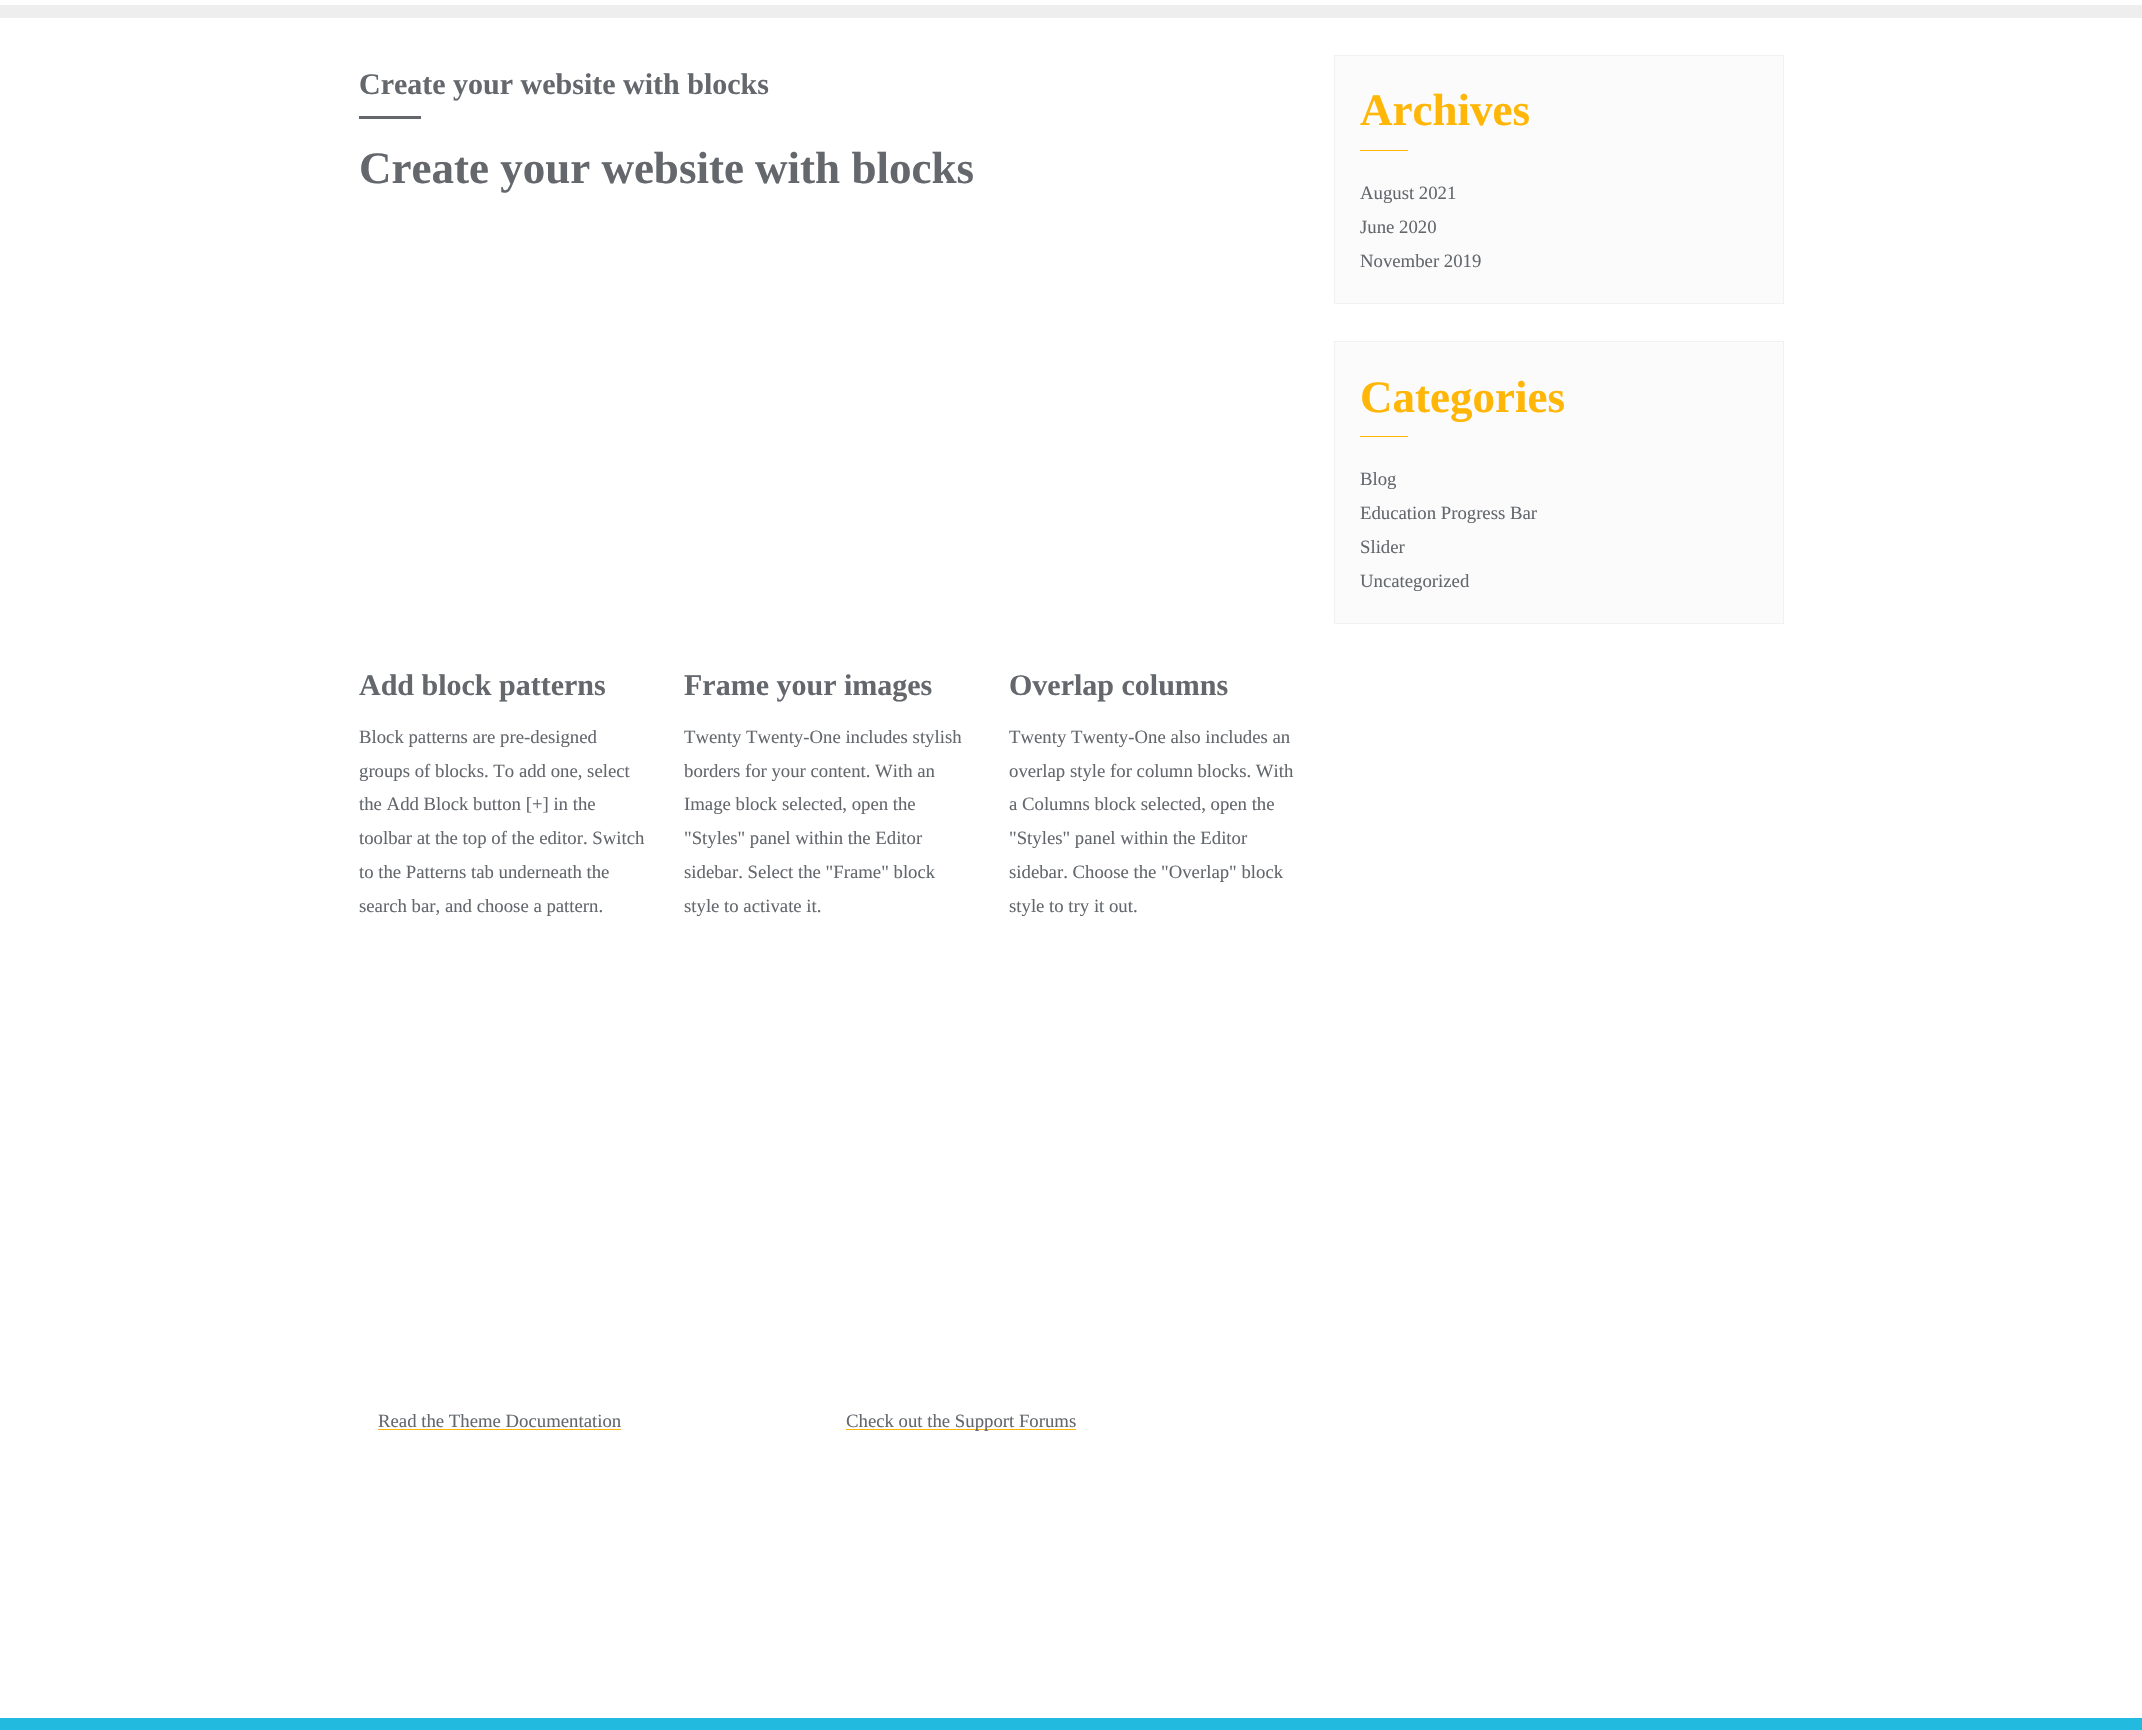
void draw(SkCanvas* c) {
SkPaint p;
p.setAntiAlias(true);
auto F=[&](const char* family, int weight, float size, bool italic = false){SkFontStyle style(weight, SkFontStyle::kNormal_Width,italic ? SkFontStyle::kItalic_Slant : SkFontStyle::kUpright_Slant);SkFont result(fontMgr->matchFamilyStyle(family, style), size);result.setSubpixel(true);return result;};
auto T=[&](const char* s, float x, float y, const SkFont& font){c->drawString(s, x, y, font, p);};
auto R=[&](float x, float y, float w, float h){c->drawRect(SkRect::MakeXYWH(x, y, w, h), p);};
c->clear(0xffffffff);
p.setColor(0xffeeeeee);
R(0,5,2142,13);
auto f1 = F("Liberation Serif",700,30);
p.setColor(0xff64686d);
T("Create your website with blocks",359,94,f1);
R(359,116,62,3);
auto f2 = F("Liberation Serif",700,45);
T("Create your website with blocks",359,183,f2);
T("Add block patterns",359,695,f1);
auto f3 = F("Liberation Serif",400,18.75);
T("Block patterns are pre-designed",359,743,f3);
T("groups of blocks. To add one, select",359,777,f3);
T("the Add Block button [+] in the",359,810,f3);
T("toolbar at the top of the editor. Switch",359,844,f3);
T("to the Patterns tab underneath the",359,878,f3);
T("search bar, and choose a pattern.",359,912,f3);
T("Frame your images",684,695,f1);
T("Twenty Twenty-One includes stylish",684,743,f3);
T("borders for your content. With an",684,777,f3);
T("Image block selected, open the",684,810,f3);
T("\"Styles\" panel within the Editor",684,844,f3);
T("sidebar. Select the \"Frame\" block",684,878,f3);
T("style to activate it.",684,912,f3);
T("Overlap columns",1009,695,f1);
T("Twenty Twenty-One also includes an",1009,743,f3);
T("overlap style for column blocks. With",1009,777,f3);
T("a Columns block selected, open the",1009,810,f3);
T("\"Styles\" panel within the Editor",1009,844,f3);
T("sidebar. Choose the \"Overlap\" block",1009,878,f3);
T("style to try it out.",1009,912,f3);
T("Read the Theme Documentation",378,1427,f3);
p.setColor(0xffffb606);
R(378,1429,243,1);
R(846,1429,230,1);
p.setColor(0xff64686d);
T("Check out the Support Forums",846,1427,f3);
p.setColor(0xfffbfbfb);
c->drawRect(SkRect::MakeXYWH(1334.5,55.5,449,248),p);
p.setStroke(true);
p.setStrokeWidth(1);
p.setColor(0xfff1f1f1);
c->drawRect(SkRect::MakeXYWH(1334.5,55.5,449,248),p);
p.setStroke(false);
p.setColor(0xffffb606);
T("Archives",1360,125,f2);
R(1360,150,48,1);
p.setColor(0xff64686d);
T("August 2021",1360,199,f3);
T("June 2020",1360,233,f3);
T("November 2019",1360,267,f3);
p.setColor(0xfffbfbfb);
c->drawRect(SkRect::MakeXYWH(1334.5,341.5,449,282),p);
p.setStroke(true);
p.setColor(0xfff1f1f1);
c->drawRect(SkRect::MakeXYWH(1334.5,341.5,449,282),p);
p.setStroke(false);
p.setColor(0xffffb606);
T("Categories",1360,412,f2);
R(1360,436,48,1);
p.setColor(0xff64686d);
T("Blog",1360,485,f3);
T("Education Progress Bar",1360,519,f3);
T("Slider",1360,553,f3);
T("Uncategorized",1360,587,f3);
p.setColor(0xff23bae0);
R(0,1718,2142,12);
}
